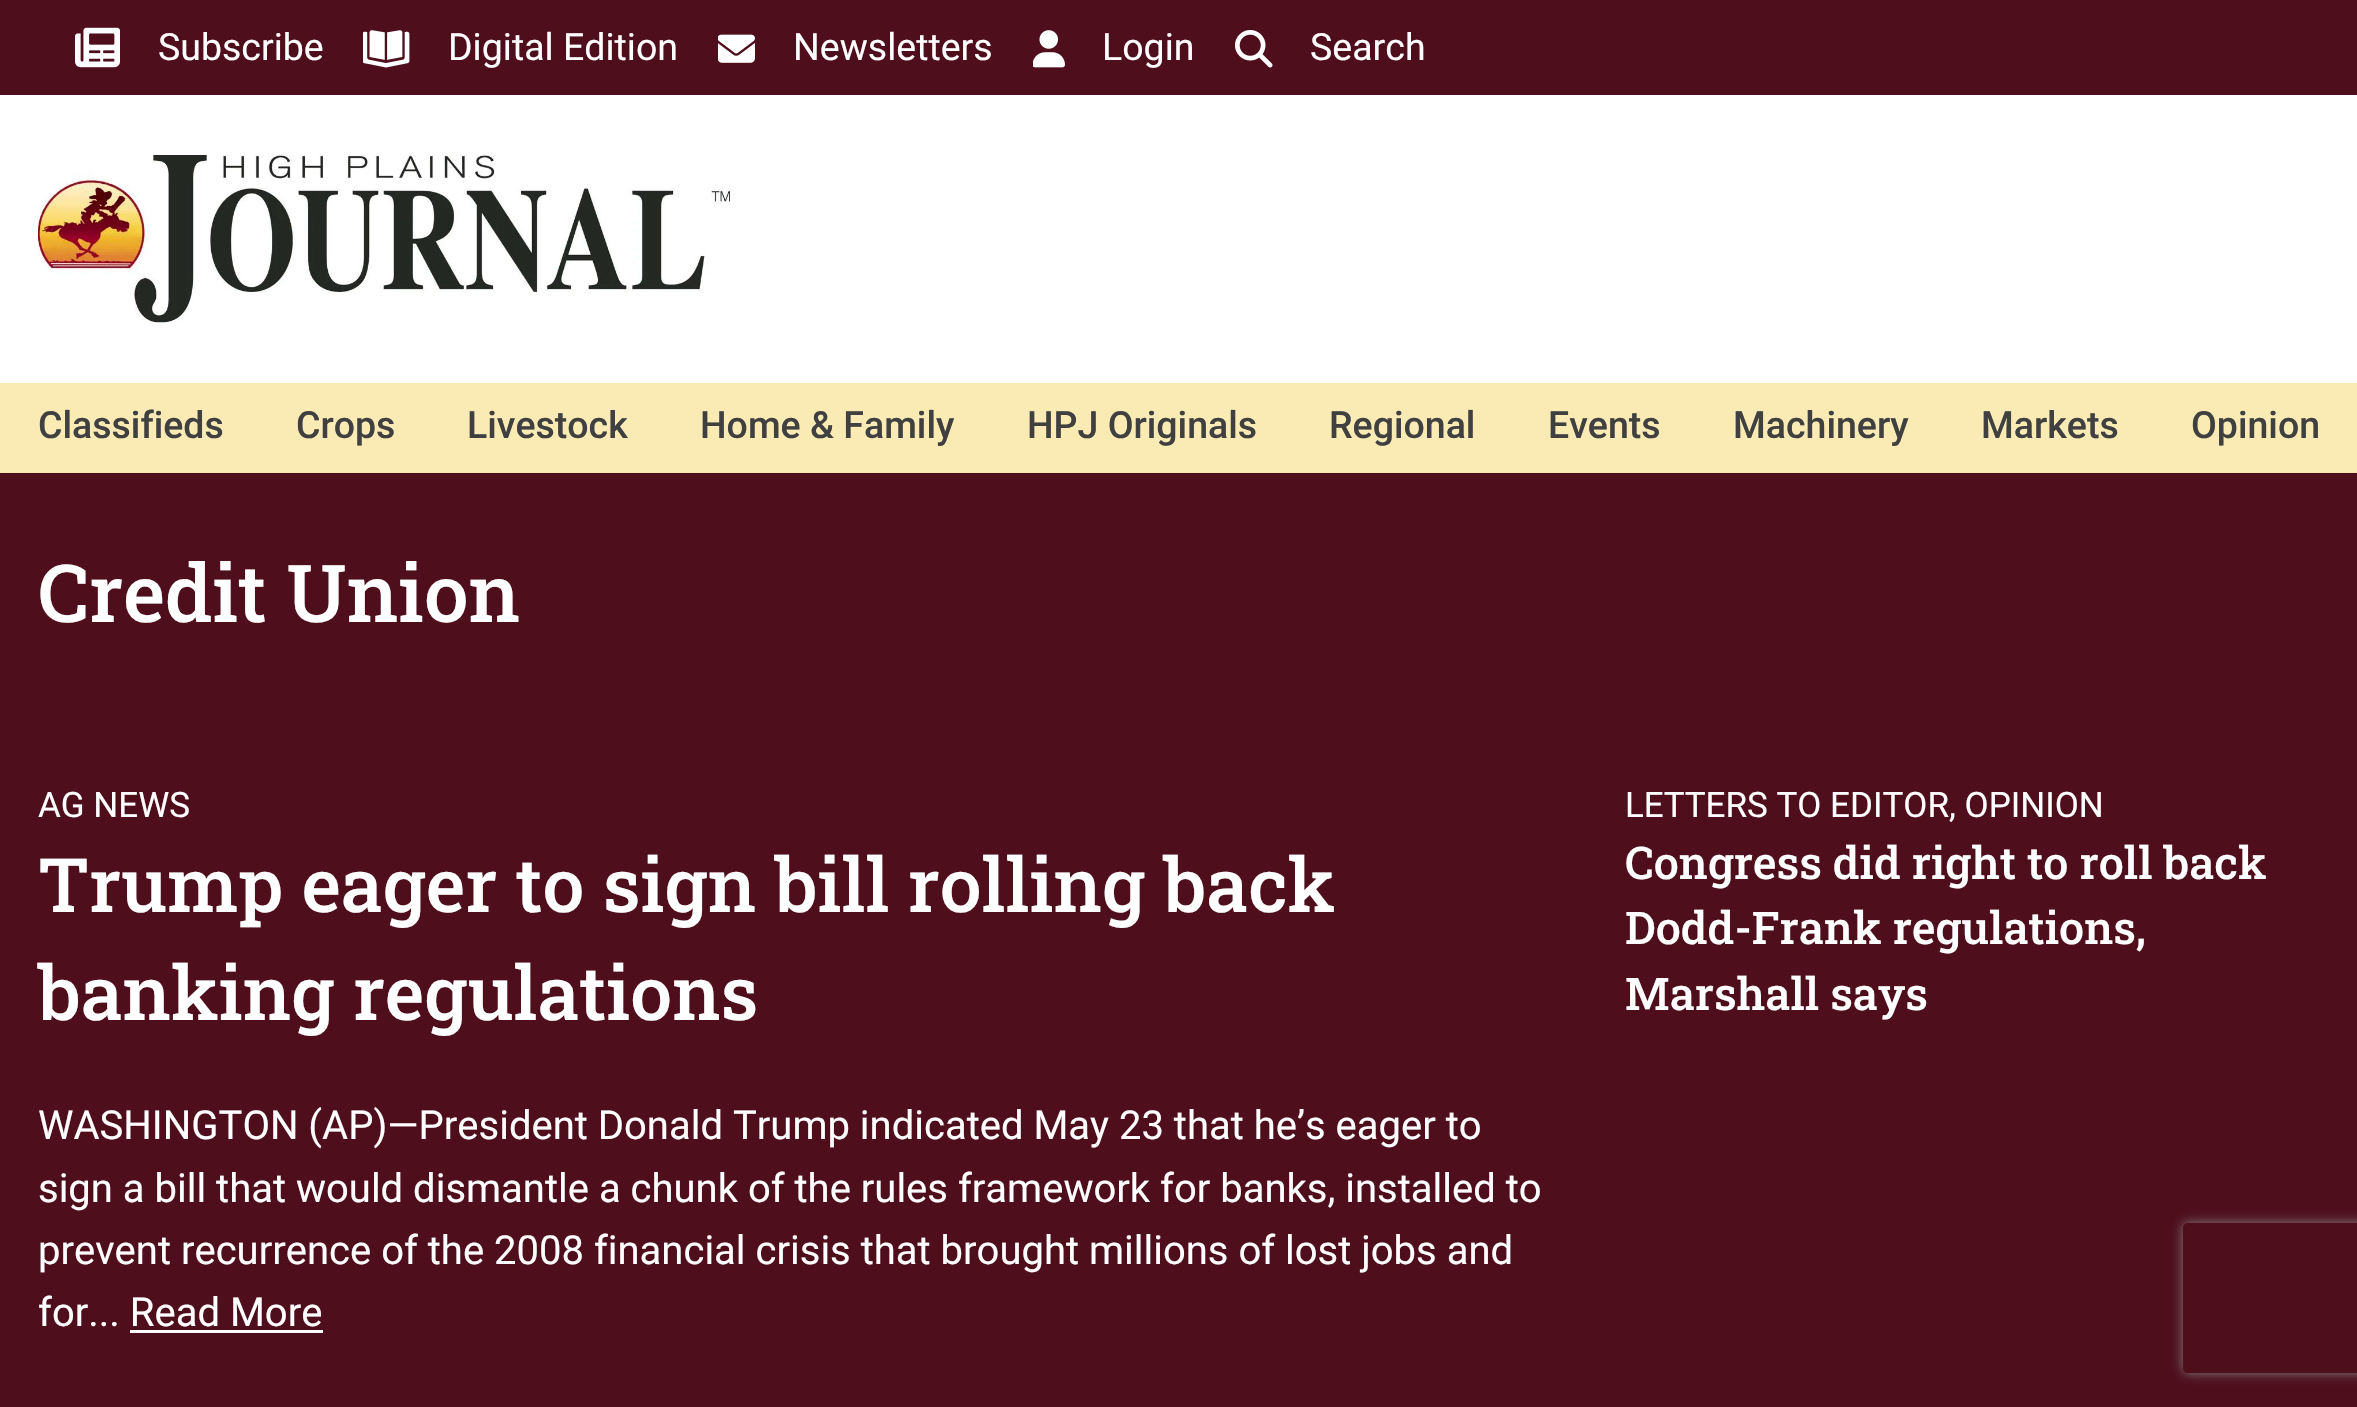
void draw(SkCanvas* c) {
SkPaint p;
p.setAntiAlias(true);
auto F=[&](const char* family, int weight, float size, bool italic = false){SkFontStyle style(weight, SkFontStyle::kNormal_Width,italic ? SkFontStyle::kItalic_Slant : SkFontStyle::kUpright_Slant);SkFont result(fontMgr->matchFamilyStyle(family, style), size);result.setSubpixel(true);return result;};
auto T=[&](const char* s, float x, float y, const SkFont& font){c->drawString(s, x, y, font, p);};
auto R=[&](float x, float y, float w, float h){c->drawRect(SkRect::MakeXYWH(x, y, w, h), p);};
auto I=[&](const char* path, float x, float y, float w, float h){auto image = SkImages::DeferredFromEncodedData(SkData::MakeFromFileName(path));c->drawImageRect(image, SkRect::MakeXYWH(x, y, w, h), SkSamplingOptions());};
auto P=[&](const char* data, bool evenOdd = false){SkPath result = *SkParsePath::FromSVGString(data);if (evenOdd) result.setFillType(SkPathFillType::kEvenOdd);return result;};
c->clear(0xffffffff);
p.setColor(0xff4e0e1c);
R(0,0,2357,95);
I("1.png",75,27,45,41);
auto f1 = F("Roboto",400,37.5);
p.setColor(0xffffffff);
T("Subscribe",158,60,f1);
I("2.png",363,30,47,38);
T("Digital Edition",448,60,f1);
I("3.png",718,34,37,29);
T("Newsletters",793,60,f1);
I("4.png",1033,30,32,38);
T("Login",1102,60,f1);
I("5.png",1235,30,38,38);
T("Search",1310,60,f1);
I("6.png",38,155,692,168);
p.setColor(0xfffaebb4);
R(0,383,2357,90);
auto f2 = F("Roboto",500,37.5);
p.setColor(0xff404040);
T("Classifieds",38,438,f2);
T("Crops",296,438,f2);
T("Livestock",467,438,f2);
T("Home & Family",700,438,f2);
T("HPJ Originals",1027,438,f2);
T("Regional",1329,438,f2);
T("Events",1548,438,f2);
T("Machinery",1733,438,f2);
T("Markets",1981,438,f2);
T("Opinion",2191,438,f2);
p.setColor(0xff4e0e1c);
R(0,473,2357,934);
auto f3 = F("Roboto Slab",500,80);
p.setColor(0xffffffff);
T("Credit Union",38,622,f3);
auto f4 = F("Roboto",400,35);
T("AG NEWS",38,817,f4);
auto f5 = F("Roboto Slab",500,75);
T("Trump eager to sign bill rolling back",38,912,f5);
T("banking regulations",38,1020,f5);
auto f6 = F("Roboto",400,40);
T("WASHINGTON (AP)—President Donald Trump indicated May 23 that he’s eager to",38,1139,f6);
T("sign a bill that would dismantle a chunk of the rules framework for banks, installed to",38,1202,f6);
T("prevent recurrence of the 2008 financial crisis that brought millions of lost jobs and",38,1264,f6);
T("for... Read More",38,1326,f6);
R(130,1330,193,3);
T("LETTERS TO EDITOR, OPINION",1625,817,f4);
auto f7 = F("Roboto Slab",500,45);
T("Congress did right to roll back",1625,879,f7);
T("Dodd-Frank regulations,",1625,944,f7);
T("Marshall says",1625,1010,f7);
c->save();
c->clipPath(P("M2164 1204h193v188h-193zm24 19h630c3 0 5 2 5 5v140c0 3-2 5-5 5h-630c-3 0-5-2-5-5v-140c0-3 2-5 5-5z",true),true);
p.setColor(0xff808080);
p.setMaskFilter(SkMaskFilter::MakeBlur(kNormal_SkBlurStyle, 6));
c->drawRoundRect(SkRect::MakeXYWH(2183,1223,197,150),5,5,p);
p.setMaskFilter(nullptr);
c->restore();
}
